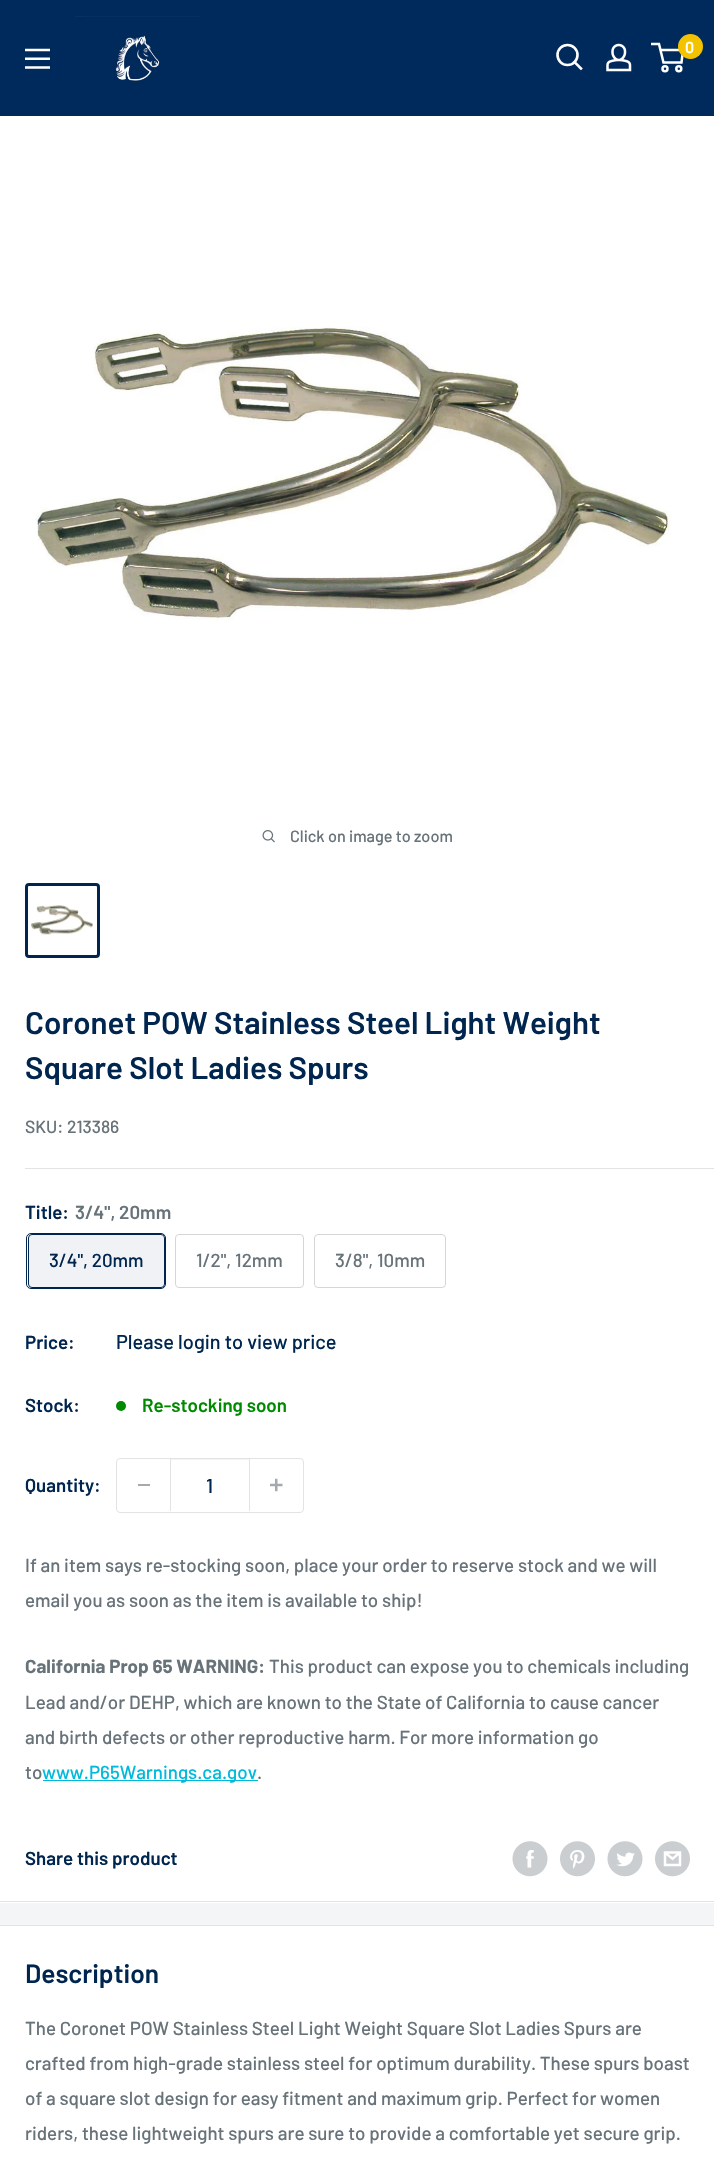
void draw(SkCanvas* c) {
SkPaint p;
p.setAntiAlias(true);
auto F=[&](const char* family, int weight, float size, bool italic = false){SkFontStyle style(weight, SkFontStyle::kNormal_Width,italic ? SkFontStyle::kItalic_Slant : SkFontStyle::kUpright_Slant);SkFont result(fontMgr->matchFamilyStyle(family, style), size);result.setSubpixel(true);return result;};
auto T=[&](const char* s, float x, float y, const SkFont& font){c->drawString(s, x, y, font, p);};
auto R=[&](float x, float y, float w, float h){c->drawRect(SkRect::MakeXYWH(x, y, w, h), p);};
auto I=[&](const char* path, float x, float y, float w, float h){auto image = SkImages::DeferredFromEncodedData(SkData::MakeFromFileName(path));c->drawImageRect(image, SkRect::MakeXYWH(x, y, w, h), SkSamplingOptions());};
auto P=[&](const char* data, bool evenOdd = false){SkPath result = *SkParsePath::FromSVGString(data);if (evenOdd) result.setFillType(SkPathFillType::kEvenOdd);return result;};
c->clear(0xfff3f5f6);
p.setColor(0xff002a5c);
R(0,0,714,116);
I("1.png",25,48,25,21);
I("2.png",75,16,125,66);
p.setStroke(true);
p.setStrokeWidth(2.6);
p.setStrokeCap(SkPaint::kSquare_Cap);
p.setColor(0xffffffff);
c->drawPath(P("M581 68.5l-6.5-6.5"),p);
p.setStrokeCap(SkPaint::kButt_Cap);
c->drawCircle(567.5,55,10,p);
I("3.png",606,43,26,29);
p.setStrokeWidth(2.5);
c->drawCircle(665,68.8,2.5,p);
c->drawCircle(678.8,68.8,2.5,p);
c->drawPath(P("M660.5 50h22.5l-1.5 12.5h-18l-4.5-18.5h-8"),p);
p.setStroke(false);
p.setColor(0xfff4c300);
c->drawCircle(690.5,46.5,12.5,p);
auto f1 = F("Barlow",600,16);
p.setColor(0xffffffff);
T("0",685,53,f1);
R(0,116,714,1787);
I("4.png",35,326,639,294);
I("5.png",262,830,13,13);
auto f2 = F("Barlow",500,16.25);
p.setColor(0xff677279);
T("Click on image to zoom",290,842,f2);
p.setStroke(true);
p.setStrokeWidth(3);
p.setColor(0xff00264f);
c->drawRoundRect(SkRect::MakeXYWH(26.5,884.5,72,72),2.5,2.5,p);
I("6.png",31,905,62,30);
p.setStroke(false);
p.setColor(0xffe1e3e4);
R(0,1901,714,1);
auto f3 = F("Barlow",600,31.25);
p.setColor(0xff00264f);
T("Coronet POW Stainless Steel Light Weight",25,1034,f3);
T("Square Slot Ladies Spurs",25,1079,f3);
auto f4 = F("Barlow",500,17.5);
p.setColor(0xff677279);
T("SKU: 213386",25,1133,f4);
p.setColor(0xffe1e3e4);
R(25,1168,689,1);
auto f5 = F("Barlow",600,18.75);
p.setColor(0xff00264f);
T("Title:",25,1219,f5);
p.setColor(0xff677279);
T("3/4\", 20mm",75,1219,f5);
p.setStroke(true);
p.setStrokeWidth(1);
p.setColor(0xff00264f);
c->drawRoundRect(SkRect::MakeXYWH(26.5,1233.5,139,55),4.5,4.5,p);
p.setStroke(false);
p.setColor(0x0f00264f);
R(28,1234,137,54);
p.setStroke(true);
p.setColor(0xff00264f);
c->drawRoundRect(SkRect::MakeXYWH(28.5,1234.5,136,53),3.5,3.5,p);
auto f6 = F("Barlow",500,18.75);
p.setStroke(false);
T("3/4\", 20mm",49,1267,f6);
p.setStroke(true);
p.setColor(0xffd4d6d8);
c->drawRoundRect(SkRect::MakeXYWH(175.5,1234.5,128,53),3.5,3.5,p);
p.setStroke(false);
p.setColor(0xff677279);
T("1/2\", 12mm",196,1267,f6);
p.setStroke(true);
p.setColor(0xffd4d6d8);
c->drawRoundRect(SkRect::MakeXYWH(314.5,1234.5,131,53),3.5,3.5,p);
p.setStroke(false);
p.setColor(0xff677279);
T("3/8\", 10mm",335,1267,f6);
p.setColor(0xff00264f);
T("Price:",25,1349,f5);
auto f7 = F("Barlow",500,20);
T("Please login to view price",116,1349,f7);
T("Stock:",25,1412,f5);
p.setColor(0xff008a00);
c->drawCircle(121,1406,5,p);
T("Re-stocking soon",142,1412,f5);
p.setColor(0xff00264f);
T("Quantity:",25,1492,f5);
p.setStroke(true);
p.setColor(0xffe1e3e4);
c->drawRoundRect(SkRect::MakeXYWH(116.5,1458.5,187,54),3.5,3.5,p);
p.setStroke(false);
p.setColor(0xffa4aaaf);
R(138,1484,12,2);
p.setColor(0xfff3f4f4);
R(171,1459,78,1);
p.setColor(0xffe1e3e4);
R(249,1459,1,52);
R(170,1459,1,52);
p.setColor(0xff00264f);
T("1",206,1493,f7);
I("7.png",270,1478,13,14);
p.setColor(0xff677279);
T("If an item says re-stocking soon, place your order to reserve stock and we will",25,1572,f6);
T("email you as soon as the item is available to ship!",25,1607,f6);
auto f8 = F("Barlow",700,18.75);
T("California Prop 65 WARNING:",25,1673,f8);
T("This product can expose you to chemicals including",269,1673,f6);
T("Lead and/or DEHP, which are known to the State of California to cause cancer",25,1709,f6);
T("and birth defects or other reproductive harm. For more information go",25,1744,f6);
T("to",25,1779,f6);
p.setColor(0xff00badb);
R(43,1780,215,1);
T("www.P65Warnings.ca.gov",42,1779,f6);
p.setColor(0xff677279);
T(".",257,1779,f6);
p.setColor(0xff00264f);
T("Share this product",25,1865,f5);
I("8.png",512,1841,36,36);
I("9.png",560,1841,35,36);
I("10.png",607,1841,36,36);
I("11.png",655,1841,35,36);
p.setColor(0xffffffff);
R(0,1926,714,247);
p.setColor(0xffe1e3e4);
R(0,1925,714,1);
auto f9 = F("Barlow",600,26.25);
p.setColor(0xff00264f);
T("Description",25,1983,f9);
p.setColor(0xff677279);
T("The Coronet POW Stainless Steel Light Weight Square Slot Ladies Spurs are",25,2035,f6);
T("crafted from high-grade stainless steel for optimum durability. These spurs boast",25,2070,f6);
T("of a square slot design for easy fitment and maximum grip. Perfect for women",25,2105,f6);
T("riders, these lightweight spurs are sure to provide a comfortable yet secure grip.",25,2140,f6);
}
